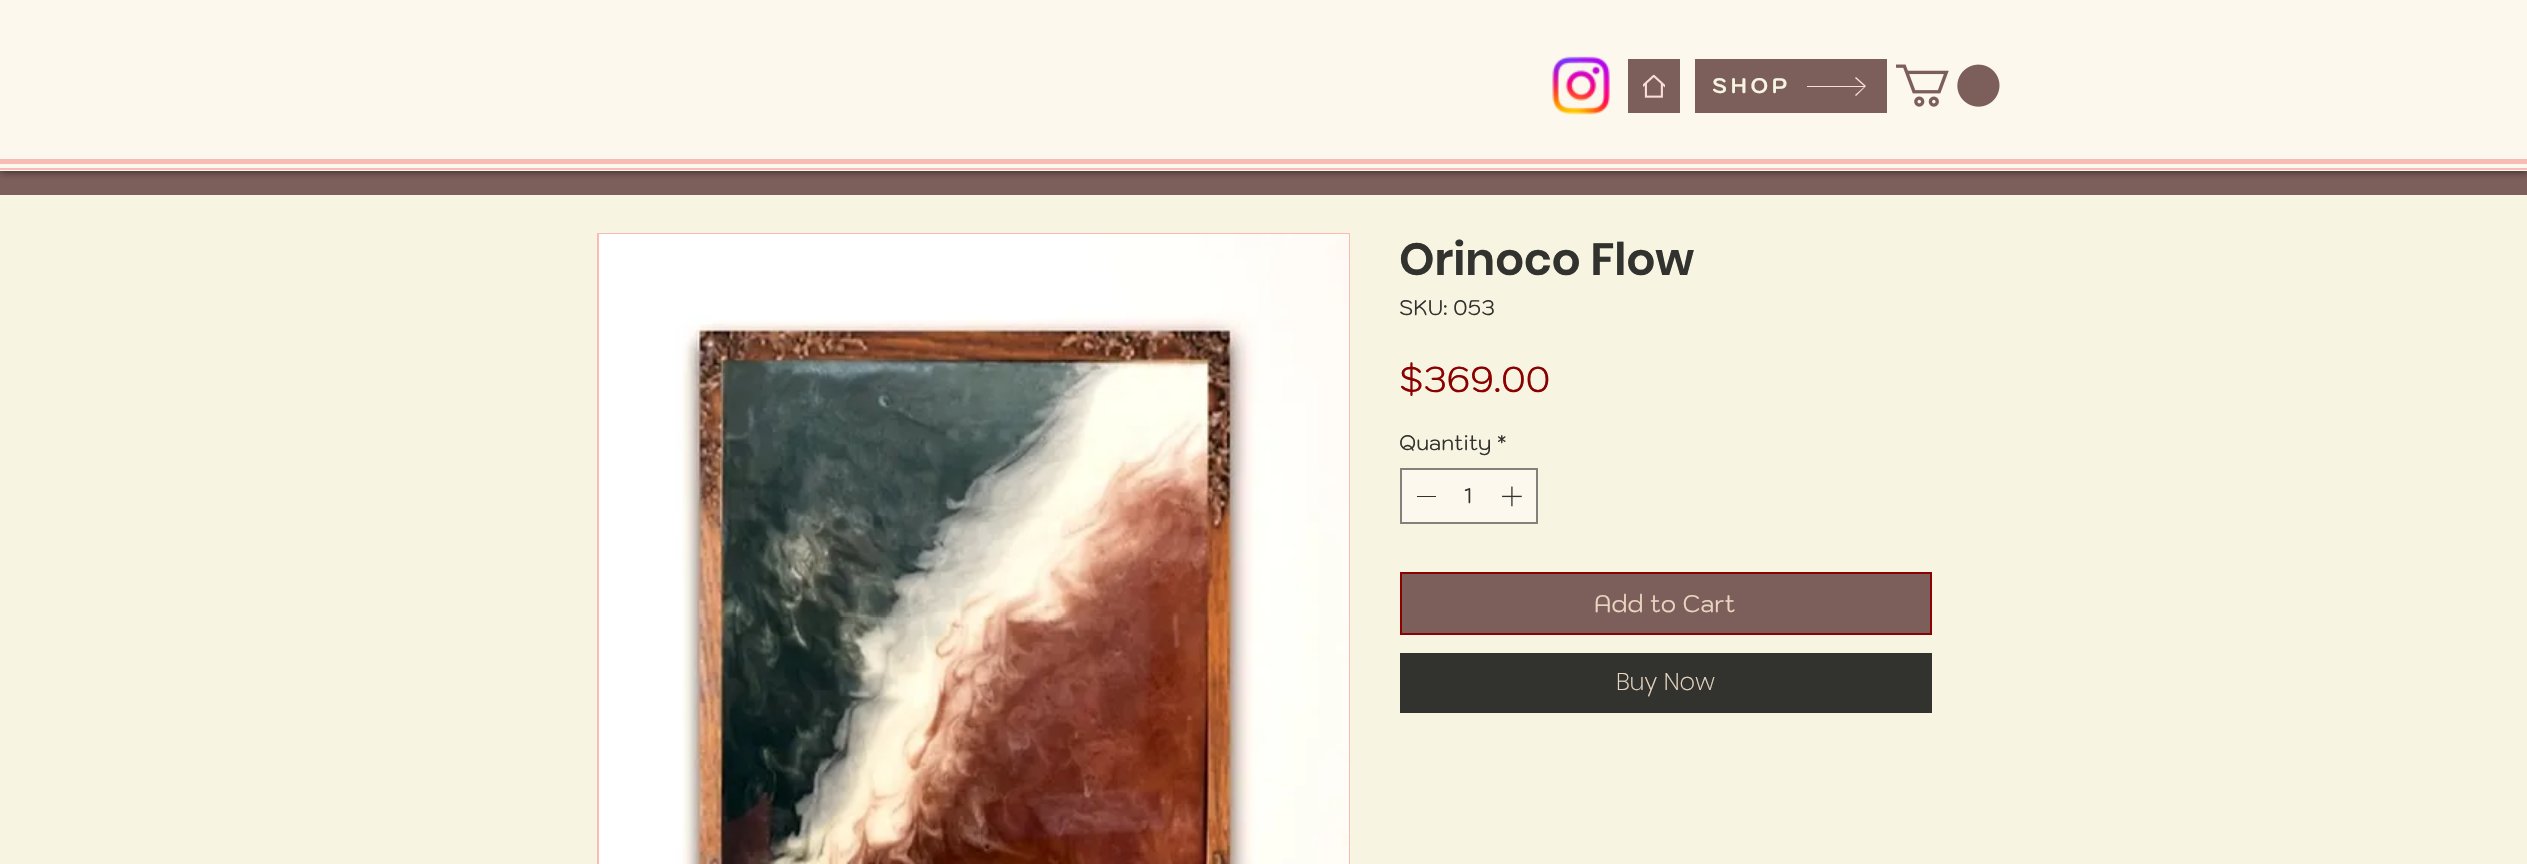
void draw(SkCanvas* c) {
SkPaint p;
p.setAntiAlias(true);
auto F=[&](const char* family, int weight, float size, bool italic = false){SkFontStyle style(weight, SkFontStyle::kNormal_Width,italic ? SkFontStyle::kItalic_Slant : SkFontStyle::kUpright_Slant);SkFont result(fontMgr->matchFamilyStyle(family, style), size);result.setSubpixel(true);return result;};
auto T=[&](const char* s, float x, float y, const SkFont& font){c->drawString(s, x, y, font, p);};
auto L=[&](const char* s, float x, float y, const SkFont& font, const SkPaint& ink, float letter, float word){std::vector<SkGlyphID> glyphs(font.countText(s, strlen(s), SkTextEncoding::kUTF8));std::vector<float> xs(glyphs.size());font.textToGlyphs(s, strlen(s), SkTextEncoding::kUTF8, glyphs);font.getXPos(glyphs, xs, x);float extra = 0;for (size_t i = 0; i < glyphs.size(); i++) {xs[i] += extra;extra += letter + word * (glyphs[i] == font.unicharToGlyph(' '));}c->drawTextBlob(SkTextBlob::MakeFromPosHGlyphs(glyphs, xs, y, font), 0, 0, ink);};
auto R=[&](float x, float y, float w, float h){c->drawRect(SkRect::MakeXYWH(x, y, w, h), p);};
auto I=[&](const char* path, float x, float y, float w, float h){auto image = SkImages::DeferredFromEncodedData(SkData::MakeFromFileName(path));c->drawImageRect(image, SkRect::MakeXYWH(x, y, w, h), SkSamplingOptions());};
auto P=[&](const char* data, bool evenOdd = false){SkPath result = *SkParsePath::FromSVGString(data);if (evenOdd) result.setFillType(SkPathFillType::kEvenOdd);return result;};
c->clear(0xff7c5e5a);
p.setColor(0xb3000000);
p.setMaskFilter(SkMaskFilter::MakeBlur(kNormal_SkBlurStyle, 4));
c->drawRect(SkRect::MakeXYWH(0,0,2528,171),p);
p.setMaskFilter(nullptr);
p.setColor(0xfffcf8ed);
R(0,0,2527,171);
I("1.png",1552,56,58,59);
p.setColor(0xff7c5e5a);
R(1628,59,52,54);
I("2.png",1643,74,22,24);
R(1695,59,192,54);
auto f1 = F("Kodchasan",700,21);
p.setColor(0xfff7f5e1);
L("SHOP",1712,93,f1,p,4,0);
p.setColor(0xfffbddd9);
c->drawPath(P("M1856 77l-1 1l9 8h-57v1h57l-9 8l1 1l10-10z"),p);
I("3.png",1896,64,104,43);
p.setColor(0xfff8bcb4);
R(0,159,2527,5);
R(0,168,2527,2);
p.setColor(0xfff7f5e1);
R(0,195,2527,669);
p.setStroke(true);
p.setStrokeWidth(2);
p.setColor(0xfff8bcb4);
c->drawRect(SkRect::MakeXYWH(598,234,751,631),p);
I("4.png",599,234,750,630);
auto f2 = F("Poppins",600,45);
p.setStroke(false);
p.setColor(0xff32322f);
T("Orinoco Flow",1399,275,f2);
auto f3 = F("Kodchasan",400,21);
T("SKU: 053",1399,315,f3);
auto f4 = F("Kodchasan",400,36);
p.setColor(0xff8b0000);
T("$369.00",1399,392,f4);
p.setColor(0xff32322f);
T("Quantity",1399,450,f3);
T("*",1497,450,f3);
p.setColor(0xfffcf8ed);
c->drawRect(SkRect::MakeXYWH(1401,469,136,54),p);
p.setStroke(true);
p.setColor(0xff83817b);
c->drawRect(SkRect::MakeXYWH(1401,469,136,54),p);
p.setStroke(false);
p.setColor(0xff32322f);
R(1417,496,19,1);
T("1",1464,503,f3);
I("5.png",1502,486,20,21);
p.setColor(0xff7c5e5a);
c->drawRect(SkRect::MakeXYWH(1401,573,530,61),p);
p.setStroke(true);
p.setColor(0xff8b0000);
c->drawRect(SkRect::MakeXYWH(1401,573,530,61),p);
auto f5 = F("Kodchasan",400,24);
p.setStroke(false);
p.setColor(0xffe8d6c1);
T("Add to Cart",1594,612,f5);
p.setColor(0xff32322f);
R(1400,653,532,60);
auto f6 = F("Poppins",200,24);
p.setColor(0xffe8d6c1);
T("Buy Now",1616,690,f6);
}
